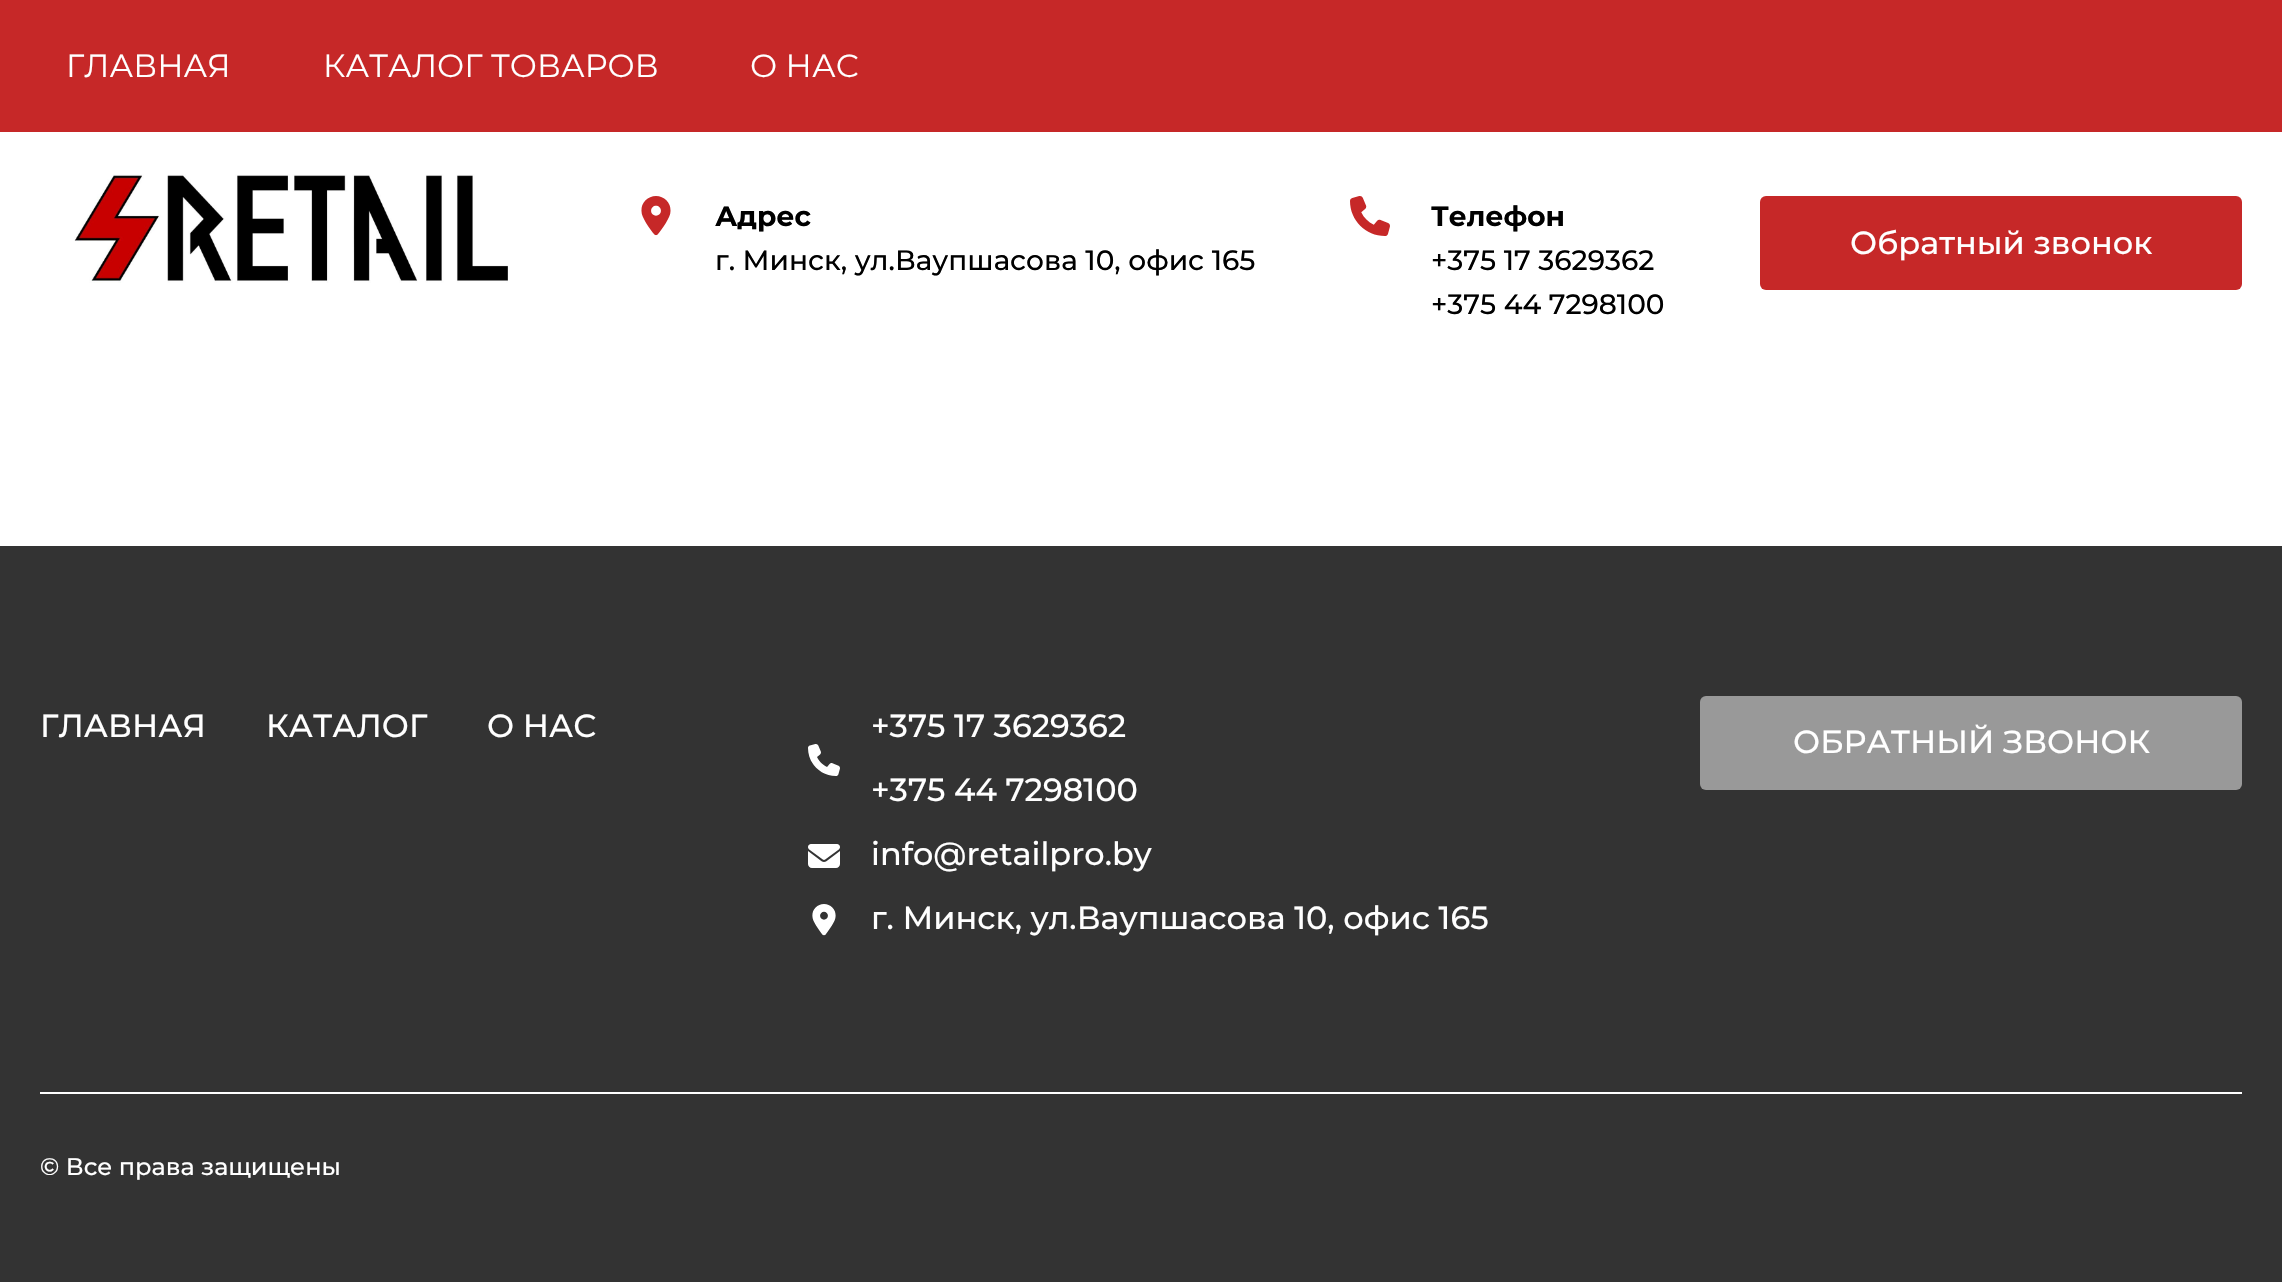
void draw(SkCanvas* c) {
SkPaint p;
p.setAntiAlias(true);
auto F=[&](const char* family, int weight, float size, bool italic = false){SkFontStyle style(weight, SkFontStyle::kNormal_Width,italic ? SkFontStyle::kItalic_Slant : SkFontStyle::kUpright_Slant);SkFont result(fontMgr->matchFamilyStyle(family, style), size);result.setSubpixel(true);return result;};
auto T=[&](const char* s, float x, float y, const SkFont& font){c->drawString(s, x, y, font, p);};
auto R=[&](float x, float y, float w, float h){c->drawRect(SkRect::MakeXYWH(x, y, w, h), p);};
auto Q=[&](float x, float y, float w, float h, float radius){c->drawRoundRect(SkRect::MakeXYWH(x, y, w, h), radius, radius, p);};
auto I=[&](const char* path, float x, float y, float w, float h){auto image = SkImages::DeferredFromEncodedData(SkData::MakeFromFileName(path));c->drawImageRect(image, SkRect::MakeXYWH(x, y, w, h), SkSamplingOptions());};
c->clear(0xffffffff);
p.setColor(0xffc62828);
R(0,0,2282,132);
auto f1 = F("Montserrat",400,32);
p.setColor(0xffffffff);
T("ГЛАВНАЯ",66,77,f1);
T("КАТАЛОГ ТОВАРОВ",323,77,f1);
T("О НАС",750,77,f1);
I("1.png",74,174,434,109);
I("2.png",641,196,30,40);
auto f2 = F("Montserrat",700,28);
p.setColor(0xff000000);
T("Адрес",715,226,f2);
auto f3 = F("Montserrat",500,28);
T("г. Минск, ул.Ваупшасова 10, офис 165",715,270,f3);
I("3.png",1350,196,40,40);
T("Телефон",1431,226,f2);
T("+375 17 3629362",1431,270,f3);
T("+375 44 7298100",1431,314,f3);
p.setColor(0xffc62828);
Q(1760,196,482,94,6);
auto f4 = F("Montserrat",500,32);
p.setColor(0xffffffff);
T("Обратный звонок",1850,254,f4);
p.setColor(0xff333333);
R(0,546,2282,736);
p.setColor(0xffffffff);
T("ГЛАВНАЯ",40,737,f4);
T("КАТАЛОГ",266,737,f4);
T("О НАС",487,737,f4);
I("4.png",808,744,32,32);
T("+375 17 3629362",871,737,f4);
T("+375 44 7298100",871,801,f4);
I("5.png",808,844,32,24);
T("info@retailpro.by",871,865,f4);
I("6.png",812,904,24,32);
T("г. Минск, ул.Ваупшасова 10, офис 165",871,929,f4);
p.setColor(0xff999999);
Q(1700,696,542,94,6);
p.setColor(0xffffffff);
T("ОБРАТНЫЙ ЗВОНОК",1793,753,f4);
R(40,1092,2202,2);
auto f5 = F("Montserrat",500,24);
T("© Все права защищены",40,1175,f5);
}
